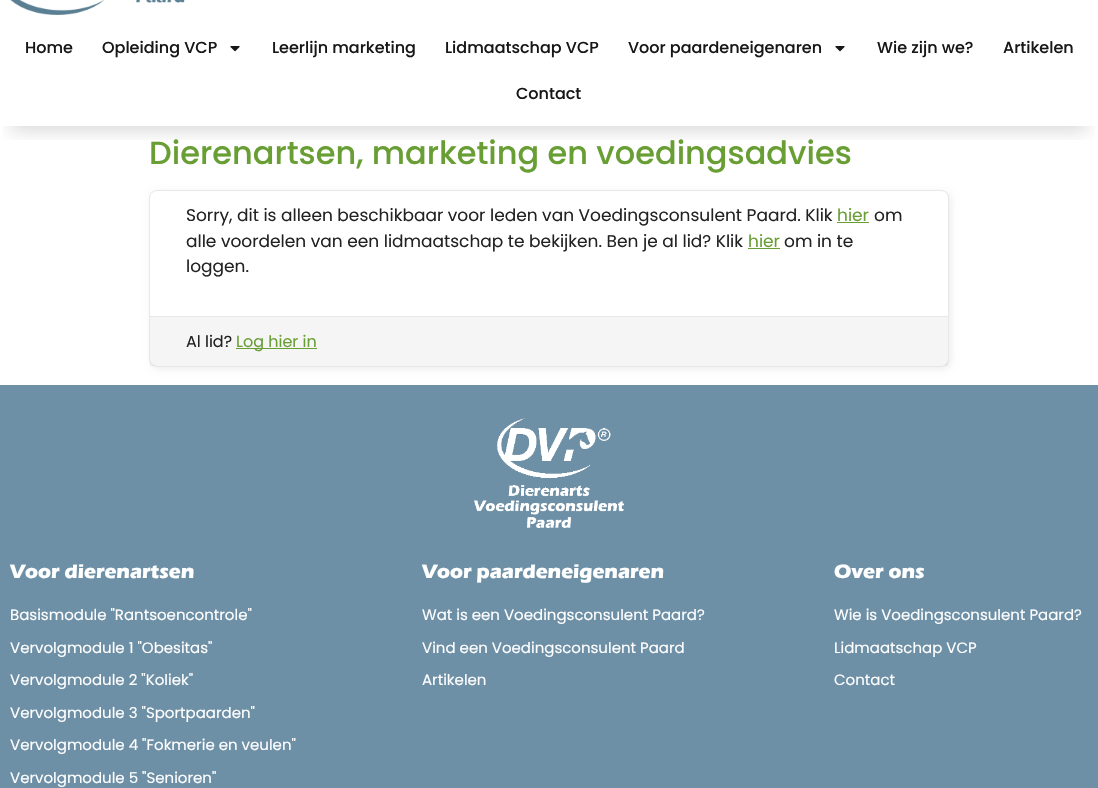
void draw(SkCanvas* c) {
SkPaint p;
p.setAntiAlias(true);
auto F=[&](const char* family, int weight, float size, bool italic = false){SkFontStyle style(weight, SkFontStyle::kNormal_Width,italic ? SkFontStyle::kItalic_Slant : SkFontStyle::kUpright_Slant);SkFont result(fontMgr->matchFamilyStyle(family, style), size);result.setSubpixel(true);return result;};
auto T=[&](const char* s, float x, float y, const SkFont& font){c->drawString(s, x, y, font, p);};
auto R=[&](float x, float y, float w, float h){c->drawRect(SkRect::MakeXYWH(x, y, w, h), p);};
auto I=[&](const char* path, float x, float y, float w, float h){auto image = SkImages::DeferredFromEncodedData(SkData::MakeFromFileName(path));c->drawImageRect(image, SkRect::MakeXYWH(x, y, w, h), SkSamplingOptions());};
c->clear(0xffffffff);
I("1.png",10,0,175,15);
c->save();
c->clipRect(SkRect::MakeXYWH(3,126,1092,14));
p.setColor(0x29000000);
p.setMaskFilter(SkMaskFilter::MakeBlur(kNormal_SkBlurStyle, 9));
c->drawRect(SkRect::MakeXYWH(11,41,1076,89),p);
p.setMaskFilter(nullptr);
c->restore();
auto f1 = F("Poppins",500,16);
p.setColor(0xff171717);
T("Home",25,53,f1);
T("Opleiding VCP",102,53,f1);
I("2.png",230,46,10,6);
T("Leerlijn marketing",272,53,f1);
T("Lidmaatschap VCP",445,53,f1);
T("Voor paardeneigenaren",628,53,f1);
I("2.png",835,46,10,6);
T("Wie zijn we?",877,53,f1);
T("Artikelen",1003,53,f1);
T("Contact",516,99,f1);
auto f2 = F("Poppins",500,32);
p.setColor(0xff689e34);
T("Dierenartsen, marketing en voedingsadvies",149,164,f2);
p.setColor(0x12000000);
p.setMaskFilter(SkMaskFilter::MakeBlur(kNormal_SkBlurStyle, 3.5));
c->drawRoundRect(SkRect::MakeXYWH(151,192,800,177),8,8,p);
p.setMaskFilter(nullptr);
p.setColor(0xffffffff);
c->drawRoundRect(SkRect::MakeXYWH(149.5,190.5,799,176),7.5,7.5,p);
p.setStroke(true);
p.setStrokeWidth(1);
p.setColor(0xffe8e8e8);
c->drawRoundRect(SkRect::MakeXYWH(149.5,190.5,799,176),7.5,7.5,p);
auto f3 = F("Poppins",400,17);
p.setStroke(false);
p.setColor(0xff222222);
T("Sorry, dit is alleen beschikbaar voor leden van Voedingsconsulent Paard. Klik",186,221,f3);
p.setColor(0xff689e34);
T("hier",837,221,f3);
R(837,222,32,1);
p.setColor(0xff222222);
T("om",874,221,f3);
T("alle voordelen van een lidmaatschap te bekijken. Ben je al lid? Klik",186,247,f3);
p.setColor(0xff689e34);
T("hier",748,247,f3);
R(748,248,32,1);
p.setColor(0xff222222);
T("om in te",784,247,f3);
T("loggen.",186,272,f3);
p.setColor(0x0a000000);
R(150,317,798,49);
p.setColor(0xffe8e8e8);
R(150,316,798,1);
auto f4 = F("Poppins",400,16);
p.setColor(0xff222222);
T("Al lid?",186,347,f4);
p.setColor(0xff689e34);
R(236,348,81,1);
T("Log hier in",236,347,f4);
p.setColor(0xff6e90a6);
R(0,385,1098,403);
I("3.png",474,418,150,110);
auto f5 = F("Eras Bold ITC",700,20);
p.setColor(0xffffffff);
T("Voor dierenartsen",10,578,f5);
auto f6 = F("Poppins",400,15);
T("Basismodule \"Rantsoencontrole\"",10,620,f6);
T("Vervolgmodule 1 \"Obesitas\"",10,653,f6);
T("Vervolgmodule 2 \"Koliek\"",10,685,f6);
T("Vervolgmodule 3 \"Sportpaarden\"",10,718,f6);
T("Vervolgmodule 4 \"Fokmerie en veulen\"",10,750,f6);
T("Vervolgmodule 5 \"Senioren\"",10,783,f6);
T("Voor paardeneigenaren",422,578,f5);
T("Wat is een Voedingsconsulent Paard?",422,620,f6);
T("Vind een Voedingsconsulent Paard",422,653,f6);
T("Artikelen",422,685,f6);
T("Over ons",834,578,f5);
T("Wie is Voedingsconsulent Paard?",834,620,f6);
T("Lidmaatschap VCP",834,653,f6);
T("Contact",834,685,f6);
}
